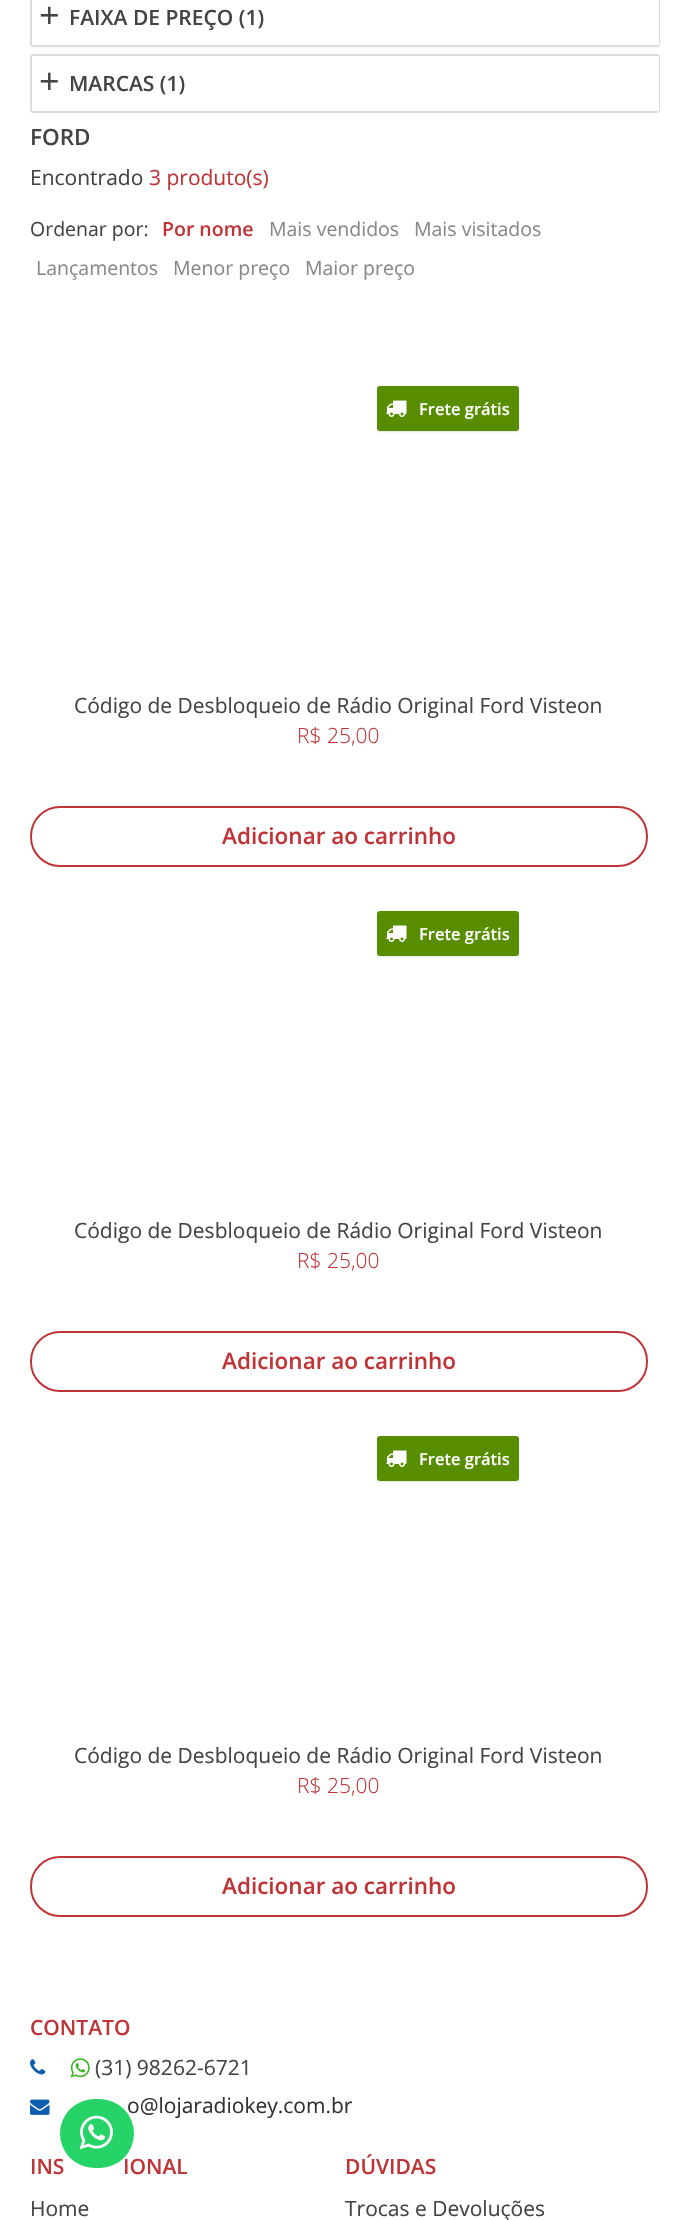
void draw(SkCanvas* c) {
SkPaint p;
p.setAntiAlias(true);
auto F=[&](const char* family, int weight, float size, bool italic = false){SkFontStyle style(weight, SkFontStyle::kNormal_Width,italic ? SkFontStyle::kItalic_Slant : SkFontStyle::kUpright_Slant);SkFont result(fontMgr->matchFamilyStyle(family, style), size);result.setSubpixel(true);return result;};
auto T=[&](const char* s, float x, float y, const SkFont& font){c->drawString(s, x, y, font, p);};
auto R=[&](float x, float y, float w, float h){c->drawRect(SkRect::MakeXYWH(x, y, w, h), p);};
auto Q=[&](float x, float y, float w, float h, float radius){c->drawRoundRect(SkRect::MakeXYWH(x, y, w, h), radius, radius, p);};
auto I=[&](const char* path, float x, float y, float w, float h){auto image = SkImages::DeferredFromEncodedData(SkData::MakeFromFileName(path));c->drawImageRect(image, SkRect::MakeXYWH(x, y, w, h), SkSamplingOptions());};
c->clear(0xffffffff);
p.setStroke(true);
p.setStrokeWidth(2);
p.setColor(0xffdddddd);
c->drawRoundRect(SkRect::MakeXYWH(31,-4,628,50),2,2,p);
p.setStroke(false);
p.setColor(0xffffffff);
R(32,0,627,45);
auto f1 = F("Open Sans",400,36);
p.setColor(0xff444444);
T("+",39,28,f1);
auto f2 = F("Open Sans",600,21);
T("FAIXA DE PREÇO (1)",69,25,f2);
p.setStroke(true);
p.setColor(0xffdddddd);
c->drawRoundRect(SkRect::MakeXYWH(31,55,628,57),2,2,p);
p.setStroke(false);
p.setColor(0xffffffff);
R(32,56,627,55);
p.setColor(0xff444444);
T("+",39,94,f1);
T("MARCAS (1)",69,91,f2);
auto f3 = F("Open Sans",600,22.5);
T("FORD",30,145,f3);
auto f4 = F("Open Sans",400,21);
T("Encontrado",30,185,f4);
p.setColor(0xffc03437);
T("3 produto(s)",149,185,f4);
auto f5 = F("Open Sans",400,19.5);
p.setColor(0xff444444);
T("Ordenar por:",30,236,f5);
auto f6 = F("Open Sans",600,19.5);
p.setColor(0xffc03437);
T("Por nome",162,236,f6);
p.setColor(0xff888888);
T("Mais vendidos",269,236,f5);
T("Mais visitados",414,236,f5);
T("Lançamentos",36,275,f5);
T("Menor preço",173,275,f5);
T("Maior preço",305,275,f5);
p.setColor(0x1a000000);
p.setMaskFilter(SkMaskFilter::MakeBlur(kNormal_SkBlurStyle, 1));
c->drawRoundRect(SkRect::MakeXYWH(377,387,142,45),3,3,p);
p.setMaskFilter(nullptr);
p.setColor(0xff588d00);
Q(377,386,142,45,3);
I("1.png",386,400,21,17);
auto f7 = F("Open Sans",600,16.5);
p.setColor(0xffffffff);
T("Frete grátis",419,415,f7);
p.setColor(0xff444444);
T("Código de Desbloqueio de Rádio Original Ford Visteon",74,713,f4);
auto f8 = F("Open Sans",300,21);
p.setColor(0xffc03437);
T("R$ 25,00",297,743,f8);
p.setStroke(true);
c->drawRoundRect(SkRect::MakeXYWH(31,807,616,59),29,29,p);
p.setStroke(false);
T("Adicionar ao carrinho",222,844,f3);
p.setColor(0x1a000000);
p.setMaskFilter(SkMaskFilter::MakeBlur(kNormal_SkBlurStyle, 1));
c->drawRoundRect(SkRect::MakeXYWH(377,912,142,45),3,3,p);
p.setMaskFilter(nullptr);
p.setColor(0xff588d00);
Q(377,911,142,45,3);
I("1.png",386,925,21,17);
p.setColor(0xffffffff);
T("Frete grátis",419,940,f7);
p.setColor(0xff444444);
T("Código de Desbloqueio de Rádio Original Ford Visteon",74,1238,f4);
p.setColor(0xffc03437);
T("R$ 25,00",297,1268,f8);
p.setStroke(true);
c->drawRoundRect(SkRect::MakeXYWH(31,1332,616,59),29,29,p);
p.setStroke(false);
T("Adicionar ao carrinho",222,1369,f3);
p.setColor(0x1a000000);
p.setMaskFilter(SkMaskFilter::MakeBlur(kNormal_SkBlurStyle, 1));
c->drawRoundRect(SkRect::MakeXYWH(377,1437,142,45),3,3,p);
p.setMaskFilter(nullptr);
p.setColor(0xff588d00);
Q(377,1436,142,45,3);
I("1.png",386,1450,21,17);
p.setColor(0xffffffff);
T("Frete grátis",419,1465,f7);
p.setColor(0xff444444);
T("Código de Desbloqueio de Rádio Original Ford Visteon",74,1763,f4);
p.setColor(0xffc03437);
T("R$ 25,00",297,1793,f8);
p.setStroke(true);
c->drawRoundRect(SkRect::MakeXYWH(31,1857,616,59),29,29,p);
p.setStroke(false);
T("Adicionar ao carrinho",222,1894,f3);
T("CONTATO",30,2035,f2);
I("2.png",30,2059,16,16);
I("3.png",70,2058,20,20);
p.setColor(0xff444444);
T("(31) 98262-6721",95,2075,f4);
I("4.png",30,2099,20,16);
p.setColor(0xff333333);
T("o@lojaradiokey.com.br",127,2113,f4);
p.setColor(0xffc03437);
T("INS",30,2174,f2);
T("IONAL",123,2174,f2);
p.setColor(0xff444444);
T("Home",30,2216,f4);
p.setColor(0xffc03437);
T("DÚVIDAS",345,2174,f2);
p.setColor(0xff444444);
T("Trocas e Devoluções",345,2216,f4);
p.setColor(0xff25d366);
Q(60,2099,74,69,34.5);
I("5.png",79,2115,34,35);
}
